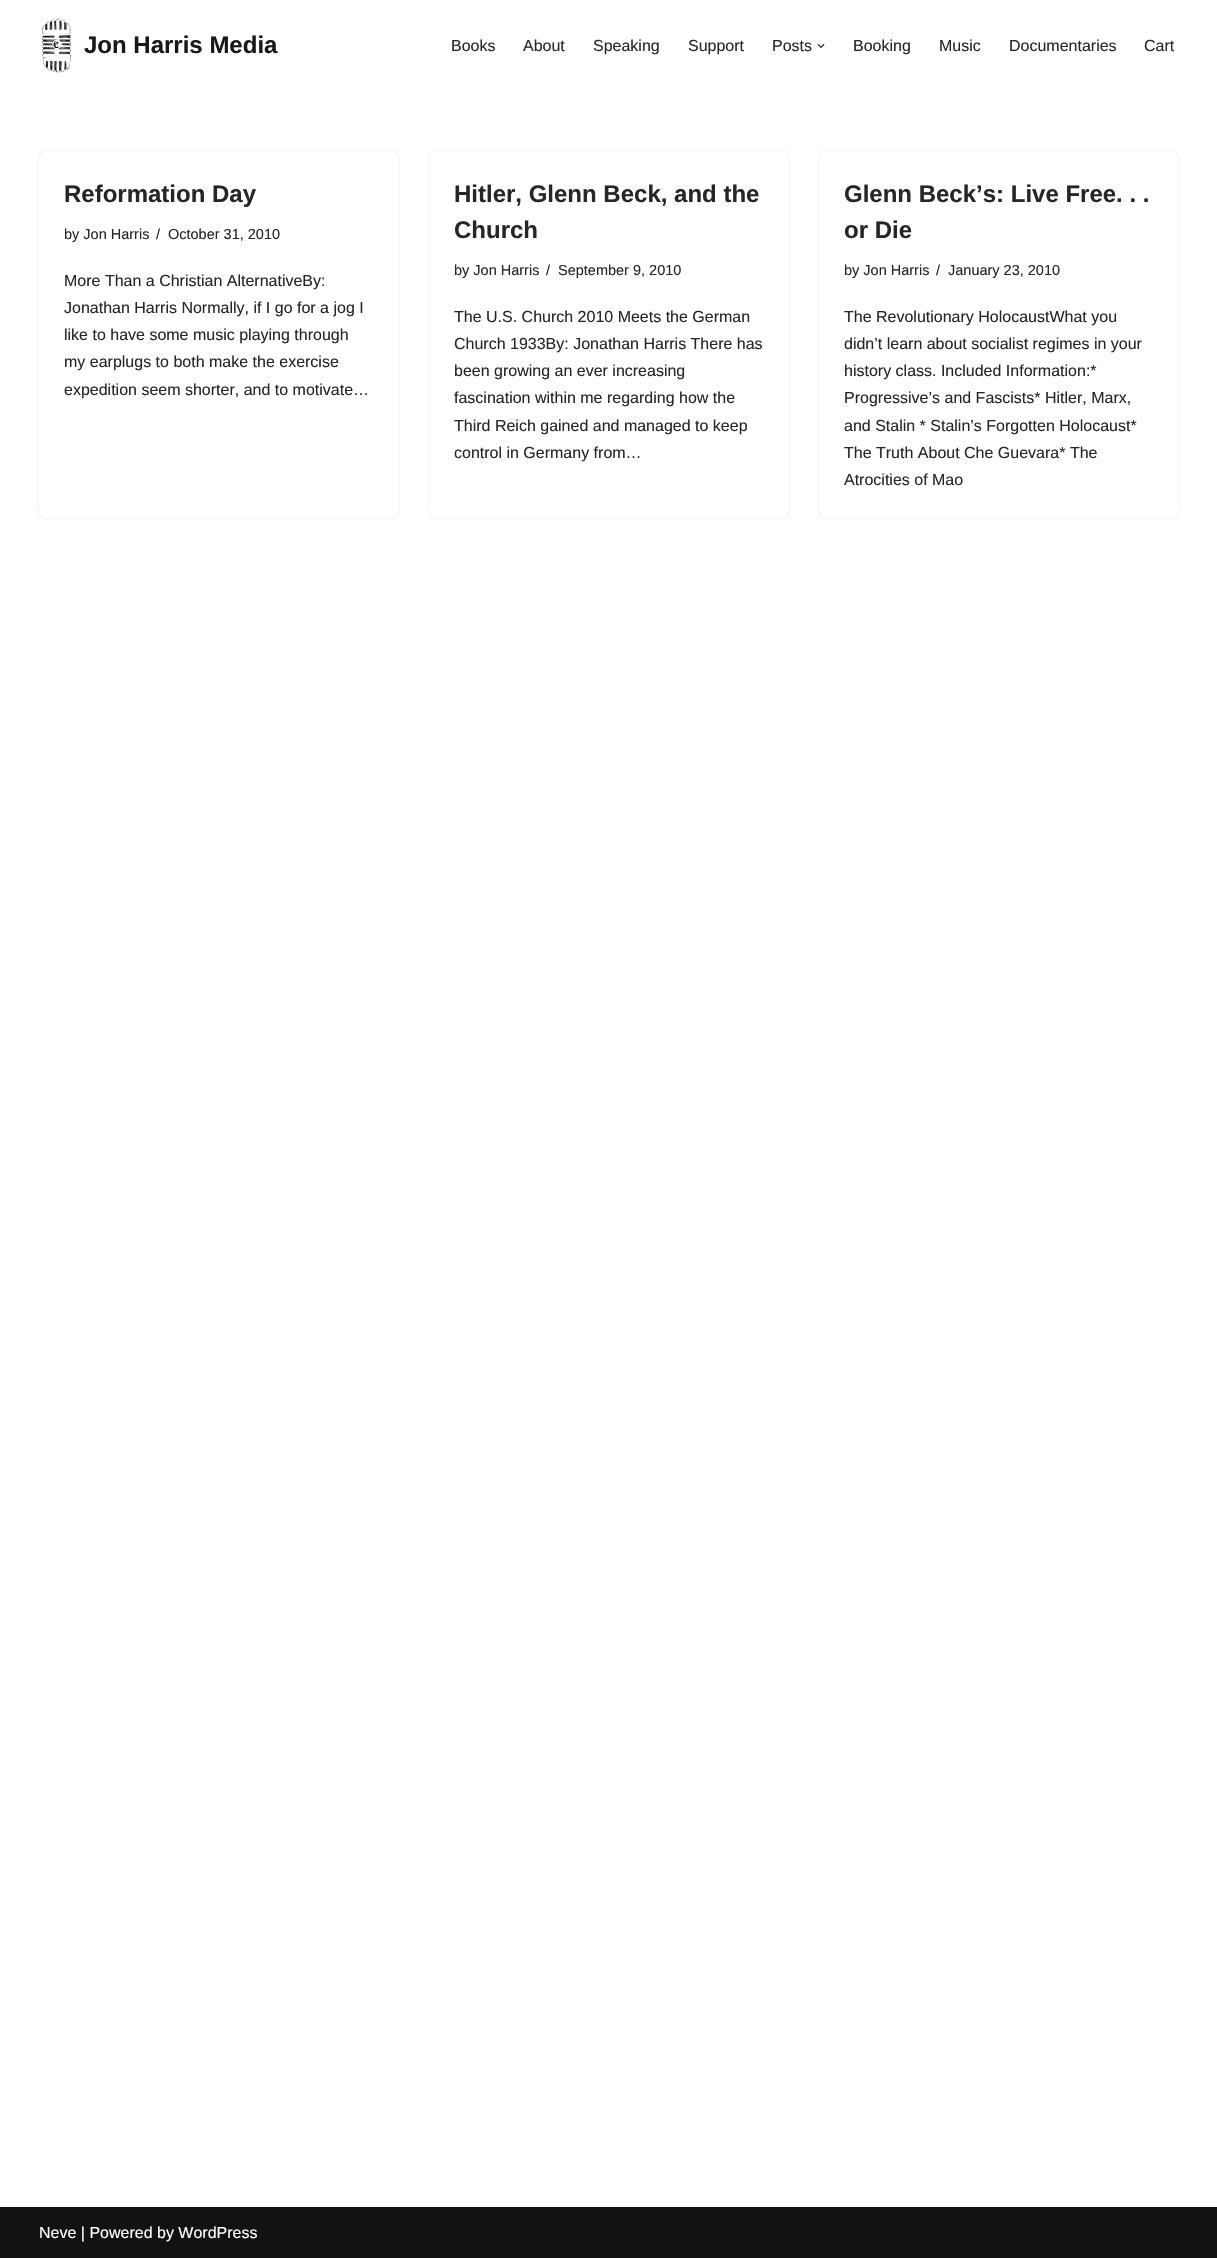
void draw(SkCanvas* c) {
SkPaint p;
p.setAntiAlias(true);
auto F=[&](const char* family, int weight, float size, bool italic = false){SkFontStyle style(weight, SkFontStyle::kNormal_Width,italic ? SkFontStyle::kItalic_Slant : SkFontStyle::kUpright_Slant);SkFont result(fontMgr->matchFamilyStyle(family, style), size);result.setSubpixel(true);return result;};
auto T=[&](const char* s, float x, float y, const SkFont& font){c->drawString(s, x, y, font, p);};
auto R=[&](float x, float y, float w, float h){c->drawRect(SkRect::MakeXYWH(x, y, w, h), p);};
auto Q=[&](float x, float y, float w, float h, float radius){c->drawRoundRect(SkRect::MakeXYWH(x, y, w, h), radius, radius, p);};
auto I=[&](const char* path, float x, float y, float w, float h){auto image = SkImages::DeferredFromEncodedData(SkData::MakeFromFileName(path));c->drawImageRect(image, SkRect::MakeXYWH(x, y, w, h), SkSamplingOptions());};
c->clear(0xffffffff);
I("1.png",42,18,29,55);
auto f1 = F("Liberation Sans",700,24);
p.setColor(0xff181818);
T("Jon Harris Media",84,53,f1);
auto f2 = F("Liberation Sans",400,16);
p.setColor(0xff272626);
T("Books",451,51,f2);
T("About",523,51,f2);
T("Speaking",593,51,f2);
T("Support",688,51,f2);
T("Posts",772,51,f2);
I("2.png",817,44,8,4);
T("Booking",853,51,f2);
T("Music",939,51,f2);
T("Documentaries",1009,51,f2);
T("Cart",1144,51,f2);
p.setColor(0x26000000);
p.setMaskFilter(SkMaskFilter::MakeBlur(kNormal_SkBlurStyle, 1));
c->drawRoundRect(SkRect::MakeXYWH(39,151,360,367),8,8,p);
p.setMaskFilter(nullptr);
p.setColor(0xffffffff);
Q(39,151,360,367,8);
p.setColor(0xff272626);
T("Reformation Day",64,202,f1);
auto f3 = F("Liberation Sans",400,14.5);
T("by Jon Harris",64,239,f3);
T("/",156,239,f3);
T("October 31, 2010",168,239,f3);
T("More Than a Christian AlternativeBy:",64,286,f2);
T("Jonathan Harris Normally, if I go for a jog I",64,313,f2);
T("like to have some music playing through",64,340,f2);
T("my earplugs to both make the exercise",64,367,f2);
T("expedition seem shorter, and to motivate…",64,395,f2);
p.setColor(0x26000000);
p.setMaskFilter(SkMaskFilter::MakeBlur(kNormal_SkBlurStyle, 1));
c->drawRoundRect(SkRect::MakeXYWH(429,151,360,367),8,8,p);
p.setMaskFilter(nullptr);
p.setColor(0xffffffff);
Q(429,151,360,367,8);
p.setColor(0xff272626);
T("Hitler, Glenn Beck, and the",454,202,f1);
T("Church",454,238,f1);
T("by Jon Harris",454,275,f3);
T("/",546,275,f3);
T("September 9, 2010",558,275,f3);
T("The U.S. Church 2010 Meets the German",454,322,f2);
T("Church 1933By: Jonathan Harris There has",454,349,f2);
T("been growing an ever increasing",454,376,f2);
T("fascination within me regarding how the",454,403,f2);
T("Third Reich gained and managed to keep",454,431,f2);
T("control in Germany from…",454,458,f2);
p.setColor(0x26000000);
p.setMaskFilter(SkMaskFilter::MakeBlur(kNormal_SkBlurStyle, 1));
c->drawRoundRect(SkRect::MakeXYWH(819,151,360,367),8,8,p);
p.setMaskFilter(nullptr);
p.setColor(0xffffffff);
Q(819,151,360,367,8);
p.setColor(0xff272626);
T("Glenn Beck’s: Live Free. . .",844,202,f1);
T("or Die",844,238,f1);
T("by Jon Harris",844,275,f3);
T("/",936,275,f3);
T("January 23, 2010",948,275,f3);
T("The Revolutionary HolocaustWhat you",844,322,f2);
T("didn’t learn about socialist regimes in your",844,349,f2);
T("history class. Included Information:*",844,376,f2);
T("Progressive’s and Fascists* Hitler, Marx,",844,403,f2);
T("and Stalin * Stalin’s Forgotten Holocaust*",844,431,f2);
T("The Truth About Che Guevara* The",844,458,f2);
T("Atrocities of Mao",844,485,f2);
p.setColor(0xff121212);
R(0,2207,1217,51);
p.setColor(0xffffffff);
T("Neve | Powered by WordPress",39,2238,f2);
}
